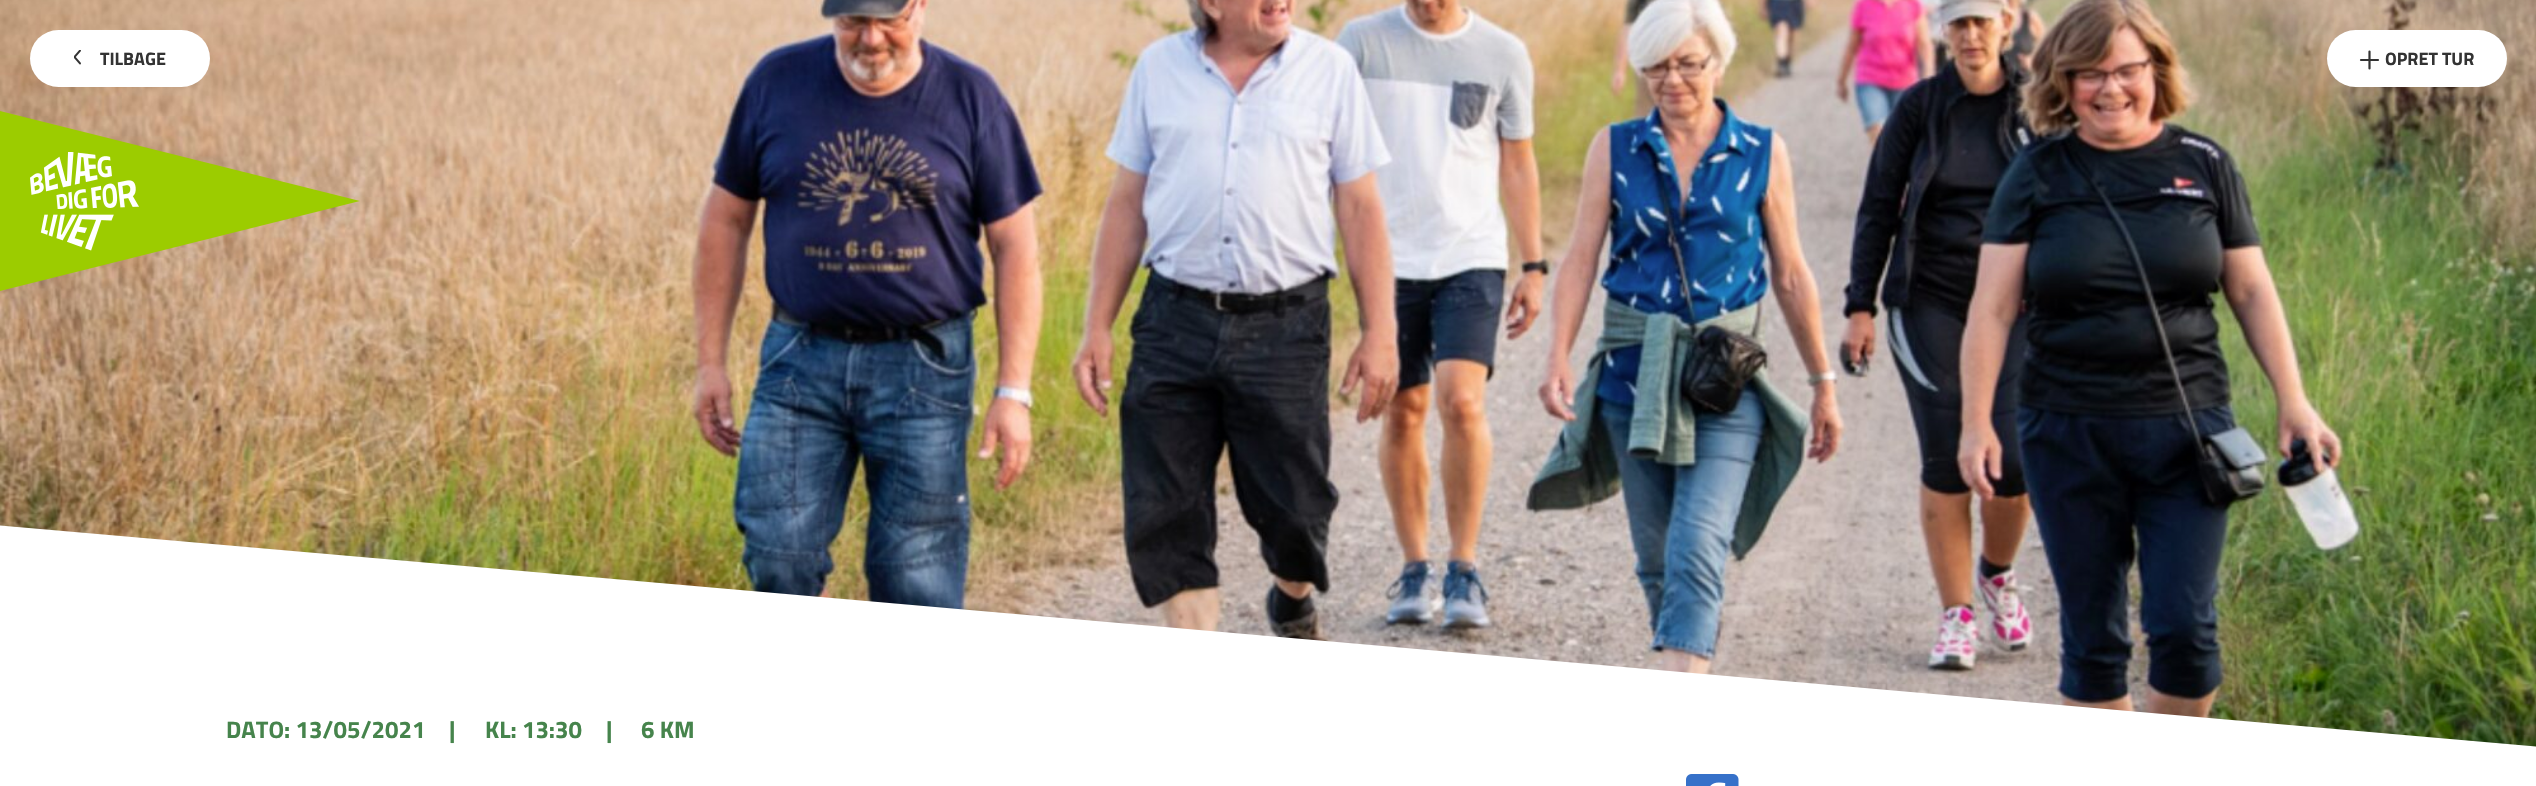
void draw(SkCanvas* c) {
SkPaint p;
p.setAntiAlias(true);
auto F=[&](const char* family, int weight, float size, bool italic = false){SkFontStyle style(weight, SkFontStyle::kNormal_Width,italic ? SkFontStyle::kItalic_Slant : SkFontStyle::kUpright_Slant);SkFont result(fontMgr->matchFamilyStyle(family, style), size);result.setSubpixel(true);return result;};
auto T=[&](const char* s, float x, float y, const SkFont& font){c->drawString(s, x, y, font, p);};
auto Q=[&](float x, float y, float w, float h, float radius){c->drawRoundRect(SkRect::MakeXYWH(x, y, w, h), radius, radius, p);};
auto I=[&](const char* path, float x, float y, float w, float h){auto image = SkImages::DeferredFromEncodedData(SkData::MakeFromFileName(path));c->drawImageRect(image, SkRect::MakeXYWH(x, y, w, h), SkSamplingOptions());};
auto P=[&](const char* data, bool evenOdd = false){SkPath result = *SkParsePath::FromSVGString(data);if (evenOdd) result.setFillType(SkPathFillType::kEvenOdd);return result;};
c->clear(0xffffffff);
I("3.png",0,0,2536,747);
p.setColor(0xffffffff);
Q(30,30,180,57,28.5);
I("1.png",74,50,7,15);
auto f1 = F("Titillium Web",700,18);
p.setColor(0xff333333);
T("TILBAGE",100,65,f1);
p.setColor(0xff9ccc00);
c->drawPath(P("M0 291v-180l360 90z"),p);
I("2.png",30,152,109,99);
p.setColor(0xffffffff);
Q(2327,30,180,57,28.5);
p.setStroke(true);
p.setStrokeWidth(2.2);
p.setStrokeCap(SkPaint::kRound_Cap);
p.setStrokeJoin(SkPaint::kRound_Join);
p.setColor(0xff333333);
c->drawPath(P("M2369.5 51.5v17m-8.5-8.5h17"),p);
p.setStroke(false);
T("OPRET TUR",2385,65,f1);
p.setColor(0xffffffff);
c->drawPath(P("M-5 525l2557 223l-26 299l-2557-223z"),p);
auto f2 = F("Titillium Web",700,24);
p.setColor(0xff46844c);
T("DATO: 13/05/2021",226,738,f2);
T("|",449,738,f2);
T("KL: 13:30",485,738,f2);
T("|",606,738,f2);
T("6 KM",641,738,f2);
I("4.png",1686,774,53,12);
}
